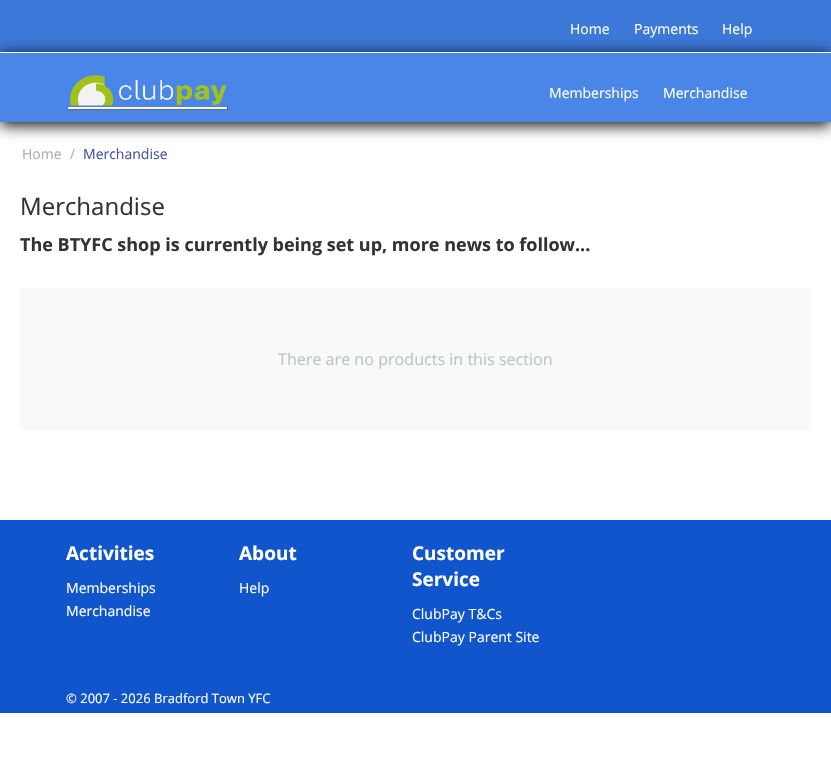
void draw(SkCanvas* c) {
SkPaint p;
p.setAntiAlias(true);
auto F=[&](const char* family, int weight, float size, bool italic = false){SkFontStyle style(weight, SkFontStyle::kNormal_Width,italic ? SkFontStyle::kItalic_Slant : SkFontStyle::kUpright_Slant);SkFont result(fontMgr->matchFamilyStyle(family, style), size);result.setSubpixel(true);return result;};
auto T=[&](const char* s, float x, float y, const SkFont& font){c->drawString(s, x, y, font, p);};
auto R=[&](float x, float y, float w, float h){c->drawRect(SkRect::MakeXYWH(x, y, w, h), p);};
auto I=[&](const char* path, float x, float y, float w, float h){auto image = SkImages::DeferredFromEncodedData(SkData::MakeFromFileName(path));c->drawImageRect(image, SkRect::MakeXYWH(x, y, w, h), SkSamplingOptions());};
c->clear(0xffffffff);
p.setColor(0xff3c78d8);
R(0,0,831,52);
auto f1 = F("Open Sans",400,14);
p.setColor(0xffffffff);
T("Home",570,34,f1);
T("Payments",634,34,f1);
T("Help",722,34,f1);
p.setColor(0xff000000);
p.setMaskFilter(SkMaskFilter::MakeBlur(kNormal_SkBlurStyle, 7.5));
c->drawRect(SkRect::MakeXYWH(0,55,831,70),p);
p.setMaskFilter(nullptr);
p.setColor(0xff4a86e8);
R(0,53,831,69);
p.setColor(0xffffffff);
R(0,52,831,1);
I("1.png",67,75,161,36);
T("Memberships",549,98,f1);
T("Merchandise",663,98,f1);
p.setColor(0xffaeaeae);
T("Home",22,159,f1);
T("/",70,159,f1);
p.setColor(0xff4651a7);
T("Merchandise",83,159,f1);
auto f2 = F("Open Sans",400,24);
p.setColor(0xff333333);
T("Merchandise",20,215,f2);
auto f3 = F("Open Sans",700,18);
T("The BTYFC shop is currently being set up, more news to follow...",20,251,f3);
p.setColor(0xfff8f9f9);
R(20,288,791,142);
auto f4 = F("Open Sans",400,16.1);
p.setColor(0xffbdc3c7);
T("There are no products in this section",278,365,f4);
p.setColor(0xff1155cc);
R(0,520,831,193);
auto f5 = F("Open Sans",700,19);
p.setColor(0xffffffff);
T("Activities",66,560,f5);
T("Memberships",66,593,f1);
T("Merchandise",66,616,f1);
T("About",239,560,f5);
T("Help",239,593,f1);
T("Customer",412,560,f5);
T("Service",412,586,f5);
T("ClubPay T&Cs",412,619,f1);
T("ClubPay Parent Site",412,642,f1);
auto f6 = F("Open Sans",400,13);
T("© 2007 - 2026 Bradford Town YFC",66,703,f6);
}
